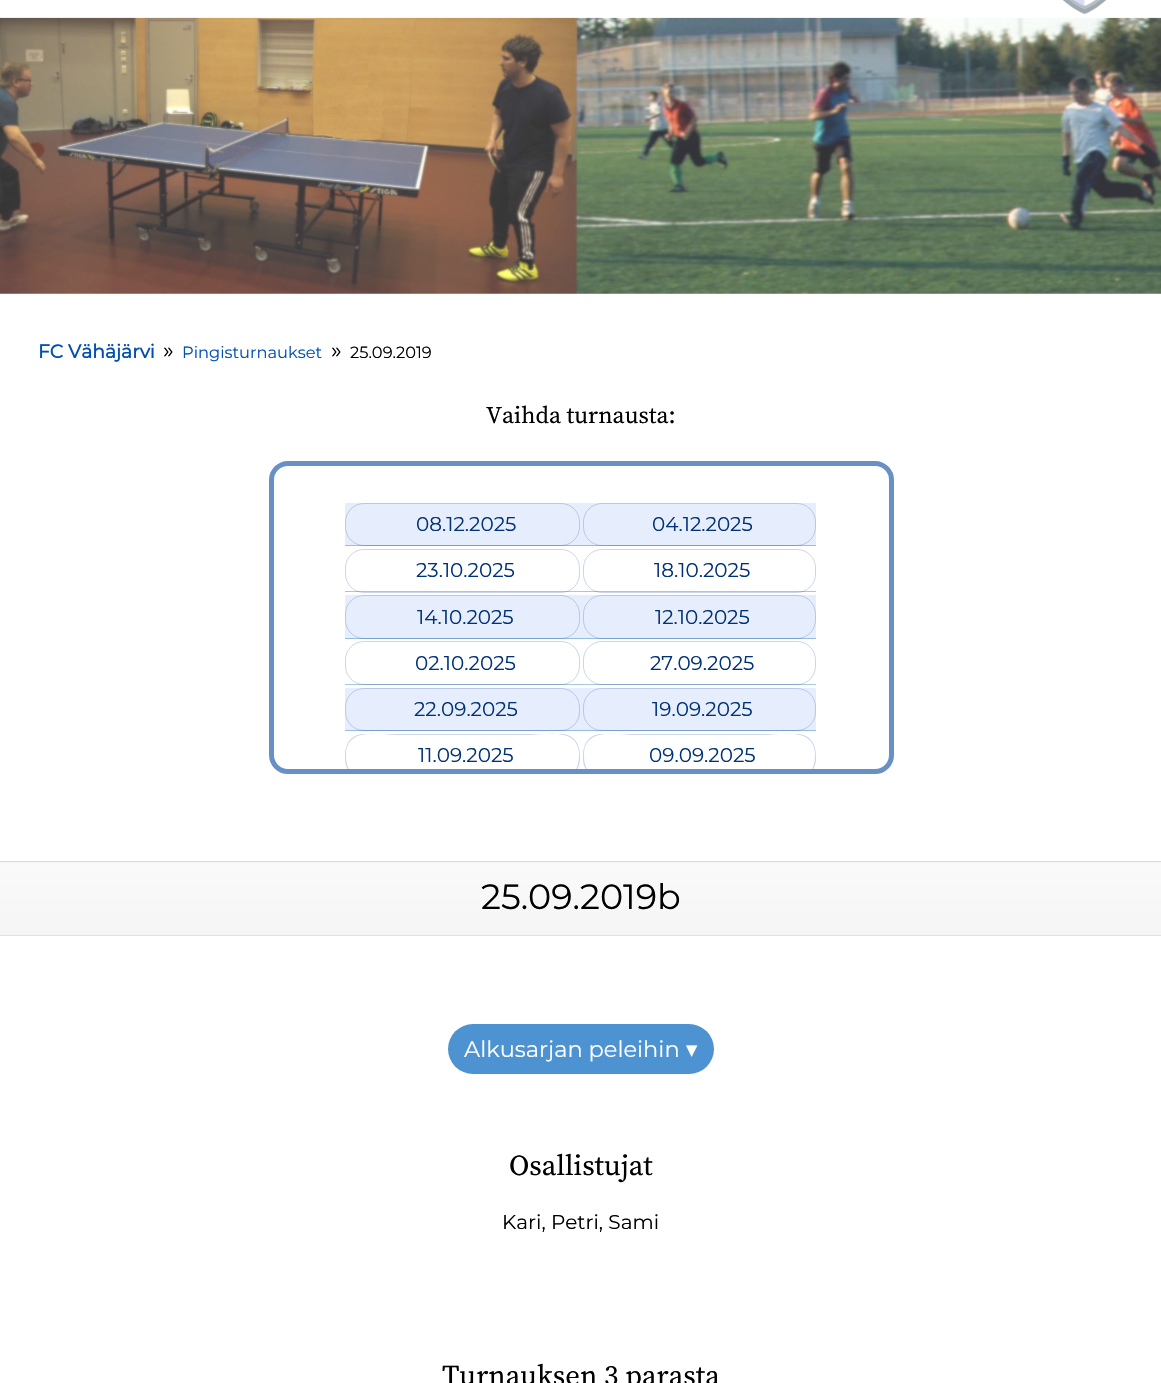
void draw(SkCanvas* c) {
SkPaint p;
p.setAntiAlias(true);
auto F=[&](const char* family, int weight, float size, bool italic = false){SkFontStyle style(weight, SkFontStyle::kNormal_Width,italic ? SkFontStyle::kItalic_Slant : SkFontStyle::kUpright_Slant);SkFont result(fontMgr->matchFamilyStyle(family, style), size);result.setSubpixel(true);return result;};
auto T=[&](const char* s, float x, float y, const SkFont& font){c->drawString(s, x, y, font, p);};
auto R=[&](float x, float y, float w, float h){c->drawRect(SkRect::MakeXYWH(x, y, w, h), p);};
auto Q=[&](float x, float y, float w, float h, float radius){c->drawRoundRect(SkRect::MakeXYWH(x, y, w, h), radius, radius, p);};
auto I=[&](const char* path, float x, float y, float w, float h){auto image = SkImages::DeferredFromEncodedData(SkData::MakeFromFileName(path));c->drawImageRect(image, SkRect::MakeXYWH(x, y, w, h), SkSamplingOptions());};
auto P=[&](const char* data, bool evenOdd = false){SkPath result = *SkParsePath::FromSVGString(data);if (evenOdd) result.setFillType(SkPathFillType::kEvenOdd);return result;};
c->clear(0xffffffff);
I("2.png",0,17,1161,277);
{
const SkColor colors[] = {0xffe6f0fa,0xccffffff};
const float stops[] = {0,1};
const SkPoint ends[] = {{581,-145}, {581,18}};
p.setShader(SkGradientShader::MakeLinear(ends, colors, stops, 2, SkTileMode::kClamp));
p.setAlpha(255);
}
R(0,17,1161,1);
I("1.png",1062,0,45,15);
auto f1 = F("Montserrat",700,18.75);
p.setShader(nullptr);
p.setColor(0xff0050b4);
T("FC Vähäjärvi",38,358,f1);
auto f2 = F("Montserrat",100,22.5);
p.setColor(0xff000000);
T("»",163,358,f2);
auto f3 = F("Montserrat",100,16.25);
p.setColor(0xff0050b4);
T("Pingisturnaukset",182,358,f3);
p.setColor(0xff000000);
T("»",331,358,f2);
T("25.09.2019",350,358,f3);
auto f4 = F("Source Serif Pro",400,23.75);
T("Vaihda turnausta:",486,423,f4);
p.setStroke(true);
p.setStrokeWidth(5);
p.setColor(0xff6690c6);
c->drawRoundRect(SkRect::MakeXYWH(271.5,463.5,620,308),16.5,16.5,p);
p.setStroke(false);
p.setColor(0xffe6edfc);
R(345,503,471,42);
p.setColor(0xff96bdde);
R(345,545,471,1);
p.setStroke(true);
p.setStrokeWidth(1);
p.setColor(0x33003296);
c->drawRoundRect(SkRect::MakeXYWH(345.5,503.5,234,42),18.5,18.5,p);
auto f5 = F("Montserrat",100,20);
p.setStroke(false);
p.setColor(0xff003278);
T("08.12.2025",416,531,f5);
p.setStroke(true);
p.setColor(0x33003296);
c->drawRoundRect(SkRect::MakeXYWH(583.5,503.5,232,42),18.5,18.5,p);
p.setStroke(false);
p.setColor(0xff003278);
T("04.12.2025",652,531,f5);
p.setColor(0xffa5c8df);
R(345,591,471,1);
p.setStroke(true);
p.setColor(0x33003296);
c->drawRoundRect(SkRect::MakeXYWH(345.5,549.5,234,43),18.5,18.5,p);
p.setStroke(false);
p.setColor(0xff003278);
T("23.10.2025",416,577,f5);
p.setStroke(true);
p.setColor(0x33003296);
c->drawRoundRect(SkRect::MakeXYWH(583.5,549.5,232,43),18.5,18.5,p);
p.setStroke(false);
p.setColor(0xff003278);
T("18.10.2025",654,577,f5);
p.setColor(0xffe6edfc);
R(345,595,471,43);
p.setColor(0xff96bdde);
R(345,638,471,1);
p.setStroke(true);
p.setColor(0x33003296);
c->drawRoundRect(SkRect::MakeXYWH(345.5,595.5,234,43),18.5,18.5,p);
p.setStroke(false);
p.setColor(0xff003278);
T("14.10.2025",417,624,f5);
p.setStroke(true);
p.setColor(0x33003296);
c->drawRoundRect(SkRect::MakeXYWH(583.5,595.5,232,43),18.5,18.5,p);
p.setStroke(false);
p.setColor(0xff003278);
T("12.10.2025",655,624,f5);
p.setColor(0xffa5c8df);
R(345,684,471,1);
p.setStroke(true);
p.setColor(0x33003296);
c->drawRoundRect(SkRect::MakeXYWH(345.5,641.5,234,43),18.5,18.5,p);
p.setStroke(false);
p.setColor(0xff003278);
T("02.10.2025",415,670,f5);
p.setStroke(true);
p.setColor(0x33003296);
c->drawRoundRect(SkRect::MakeXYWH(583.5,641.5,232,43),18.5,18.5,p);
p.setStroke(false);
p.setColor(0xff003278);
T("27.09.2025",650,670,f5);
p.setColor(0xffe6edfc);
R(345,688,471,42);
p.setColor(0xff96bdde);
R(345,730,471,1);
p.setStroke(true);
p.setColor(0x33003296);
c->drawRoundRect(SkRect::MakeXYWH(345.5,688.5,234,42),18.5,18.5,p);
p.setStroke(false);
p.setColor(0xff003278);
T("22.09.2025",414,716,f5);
p.setStroke(true);
p.setColor(0x33003296);
c->drawRoundRect(SkRect::MakeXYWH(583.5,688.5,232,42),18.5,18.5,p);
p.setStroke(false);
p.setColor(0xff003278);
T("19.09.2025",652,716,f5);
p.setColor(0xffccd6ea);
c->drawPath(P("M364 734c-13 0-19 10-19 22c0 5 0 9 3 13h1c-3-5-3-11-3-16c2-26 34-18 51-18h131c17 0 49-8 51 18c0 5 0 11-3 16h1c3-4 3-8 3-13c0-12-6-22-19-22z"),p);
p.setColor(0xff003278);
T("11.09.2025",418,762,f5);
p.setColor(0xffccd6ea);
c->drawPath(P("M602 734c-13 0-19 10-19 22c0 5 0 9 3 13h1c-3-5-3-11-3-16c2-26 34-18 50-18h130c17 0 49-8 51 18c0 5 0 11-3 16h1c3-4 3-8 3-13c0-12-6-22-19-22z"),p);
p.setColor(0xff003278);
T("09.09.2025",649,762,f5);
{
const SkColor colors[] = {0xfffafafa,0xfff5f5f5};
const float stops[] = {0,1};
const SkPoint ends[] = {{581,790}, {581,863}};
p.setShader(SkGradientShader::MakeLinear(ends, colors, stops, 2, SkTileMode::kClamp));
p.setAlpha(255);
}
R(0,862,1161,1);
{
const SkColor colors[] = {0xfffafafa,0xfff5f5f5};
const float stops[] = {0,1};
const SkPoint ends[] = {{581,863}, {581,935}};
p.setShader(SkGradientShader::MakeLinear(ends, colors, stops, 2, SkTileMode::kClamp));
p.setAlpha(255);
}
R(0,863,1161,72);
p.setShader(nullptr);
p.setColor(0xffdddddd);
R(0,861,1161,1);
p.setColor(0xffe1e1e1);
R(0,935,1161,1);
auto f6 = F("Montserrat",100,35);
p.setColor(0xff000000);
T("25.09.2019b",481,909,f6);
p.setColor(0xff4d93d2);
Q(448,1024,266,50,25);
p.setColor(0xffffffff);
T("Alkusarjan peleihin",464,1057,f2);
auto f7 = F("DejaVu Sans",400,22.5);
T("▾",686,1057,f7);
auto f8 = F("Source Serif Pro",400,28.75);
p.setColor(0xff000000);
T("Osallistujat",509,1175,f8);
T("Kari, Petri, Sami",502,1229,f5);
T("Turnauksen 3 parasta",442,1385,f8);
}
